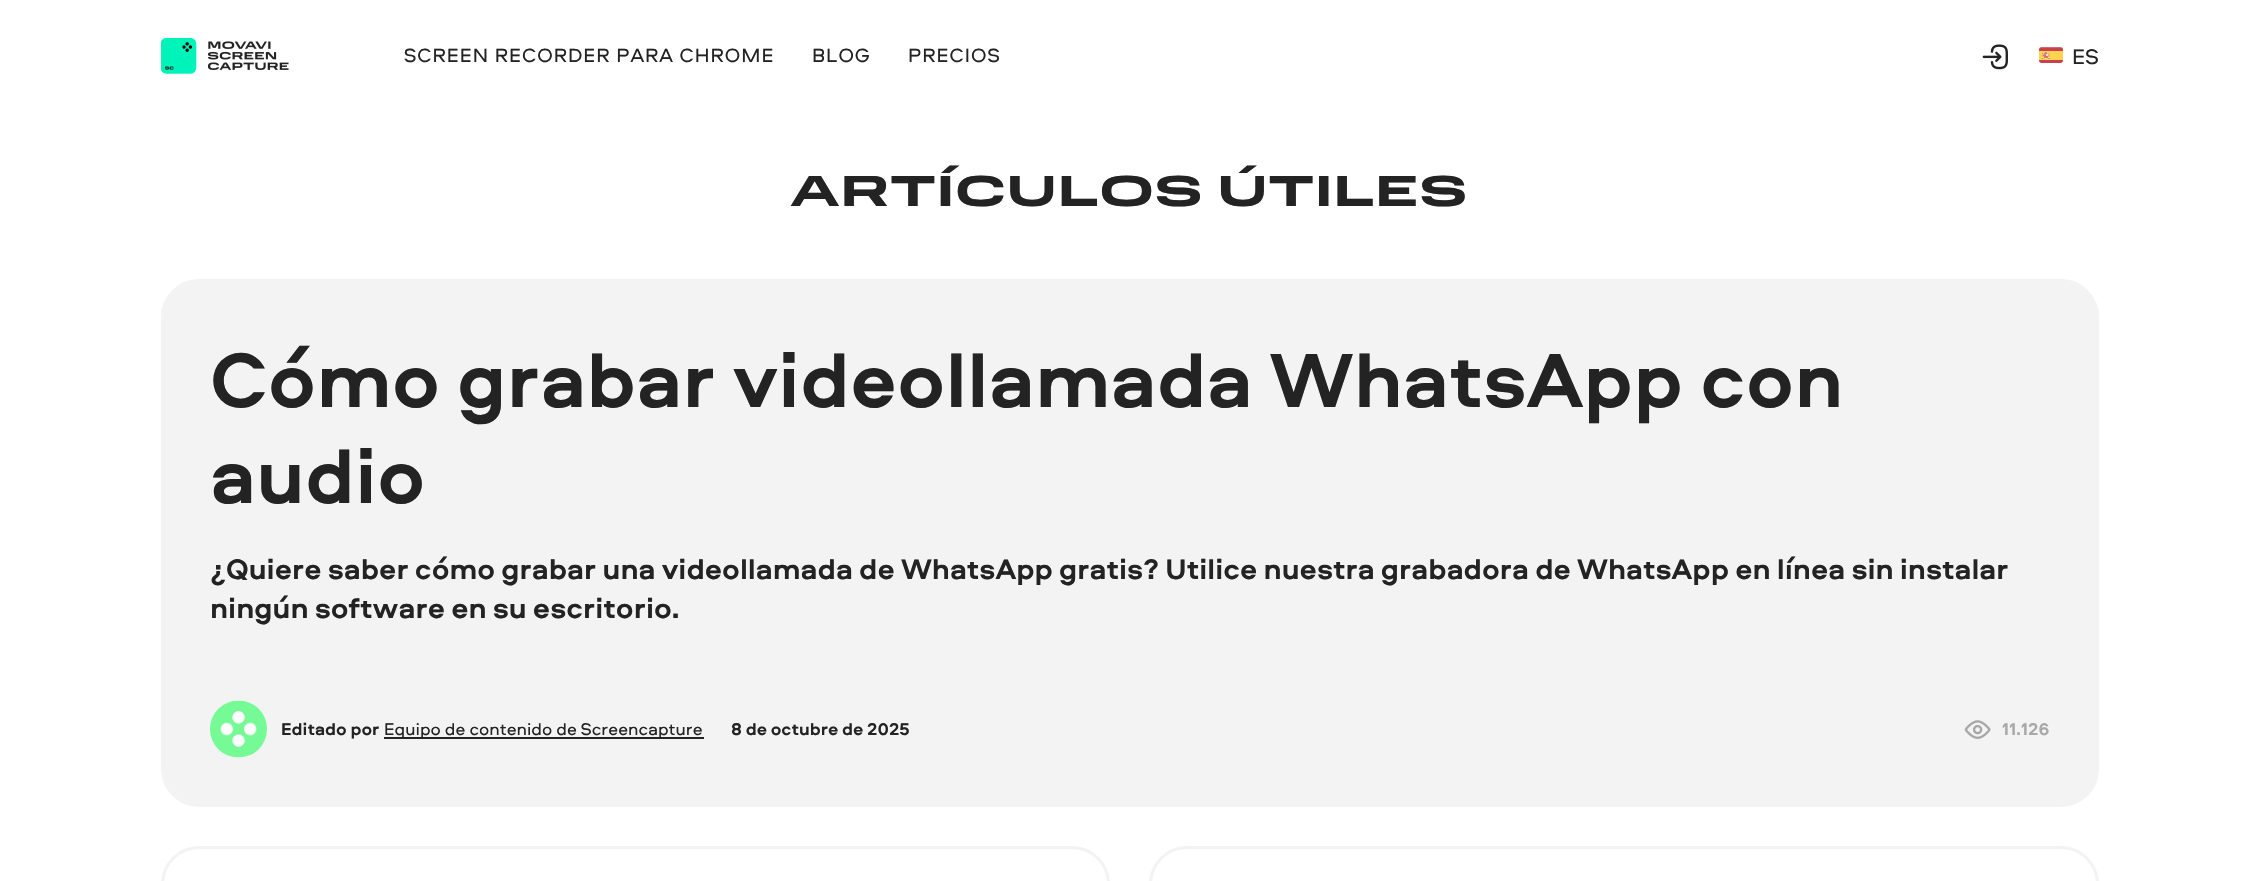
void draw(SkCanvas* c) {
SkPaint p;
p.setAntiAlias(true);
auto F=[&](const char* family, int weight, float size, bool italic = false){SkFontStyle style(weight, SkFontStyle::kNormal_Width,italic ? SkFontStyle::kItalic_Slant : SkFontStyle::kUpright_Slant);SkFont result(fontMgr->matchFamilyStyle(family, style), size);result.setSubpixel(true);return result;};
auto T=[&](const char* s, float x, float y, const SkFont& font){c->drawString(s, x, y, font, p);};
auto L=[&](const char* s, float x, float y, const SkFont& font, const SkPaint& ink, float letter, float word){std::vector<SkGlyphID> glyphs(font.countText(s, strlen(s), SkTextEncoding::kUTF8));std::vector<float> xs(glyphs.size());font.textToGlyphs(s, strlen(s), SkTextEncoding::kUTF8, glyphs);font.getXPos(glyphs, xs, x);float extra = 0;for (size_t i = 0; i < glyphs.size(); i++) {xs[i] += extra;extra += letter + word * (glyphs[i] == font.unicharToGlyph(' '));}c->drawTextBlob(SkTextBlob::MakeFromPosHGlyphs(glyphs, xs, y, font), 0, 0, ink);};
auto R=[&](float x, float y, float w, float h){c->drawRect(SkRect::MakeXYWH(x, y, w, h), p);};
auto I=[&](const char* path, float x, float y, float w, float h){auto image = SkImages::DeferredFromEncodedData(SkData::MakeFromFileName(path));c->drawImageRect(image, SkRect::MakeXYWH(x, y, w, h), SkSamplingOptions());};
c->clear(0xffffffff);
I("1.png",161,38,128,36);
auto f1 = F("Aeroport",400,20);
p.setColor(0xff232323);
L("SCREEN RECORDER PARA CHROME",404,62,f1,p,1,0);
L("BLOG",812,62,f1,p,1,0);
L("PRECIOS",908,62,f1,p,1,0);
I("2.png",1982,44,26,26);
I("3.png",2039,47,24,16);
auto f2 = F("Aeroport",400,22);
T("ES",2072,64,f2);
auto f3 = F("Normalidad",700,43.5);
L("ARTÍCULOS ÚTILES",791,206,f3,p,2.2,0);
p.setColor(0xfff3f3f3);
c->drawRoundRect(SkRect::MakeXYWH(162.5,280.5,1935,525),36.5,36.5,p);
p.setStroke(true);
p.setStrokeWidth(3);
c->drawRoundRect(SkRect::MakeXYWH(162.5,280.5,1935,525),36.5,36.5,p);
auto f4 = F("Aeroport",700,80);
p.setStroke(false);
p.setColor(0xff232323);
T("Cómo grabar videollamada WhatsApp con",210,407,f4);
T("audio",210,503,f4);
auto f5 = F("Aeroport",700,29.4);
T("¿Quiere saber cómo grabar una videollamada de WhatsApp gratis? Utilice nuestra grabadora de WhatsApp en línea sin instalar",210,579,f5);
T("ningún software en su escritorio.",210,618,f5);
I("4.png",210,700,57,58);
auto f6 = F("Aeroport",700,17.6);
T("Editado por",281,735,f6);
R(384,737,320,2);
auto f7 = F("Aeroport",400,17.6);
T("Equipo de contenido de Screencapture",384,735,f7);
T("8 de octubre de 2025",731,735,f6);
I("5.png",1964,720,27,19);
p.setColor(0xffa8a8a8);
T("11.126",2002,735,f6);
p.setStroke(true);
p.setColor(0xfff3f3f3);
c->drawRoundRect(SkRect::MakeXYWH(162.5,847.5,946,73),36.5,36.5,p);
c->drawRoundRect(SkRect::MakeXYWH(1150.5,847.5,947,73),36.5,36.5,p);
}
